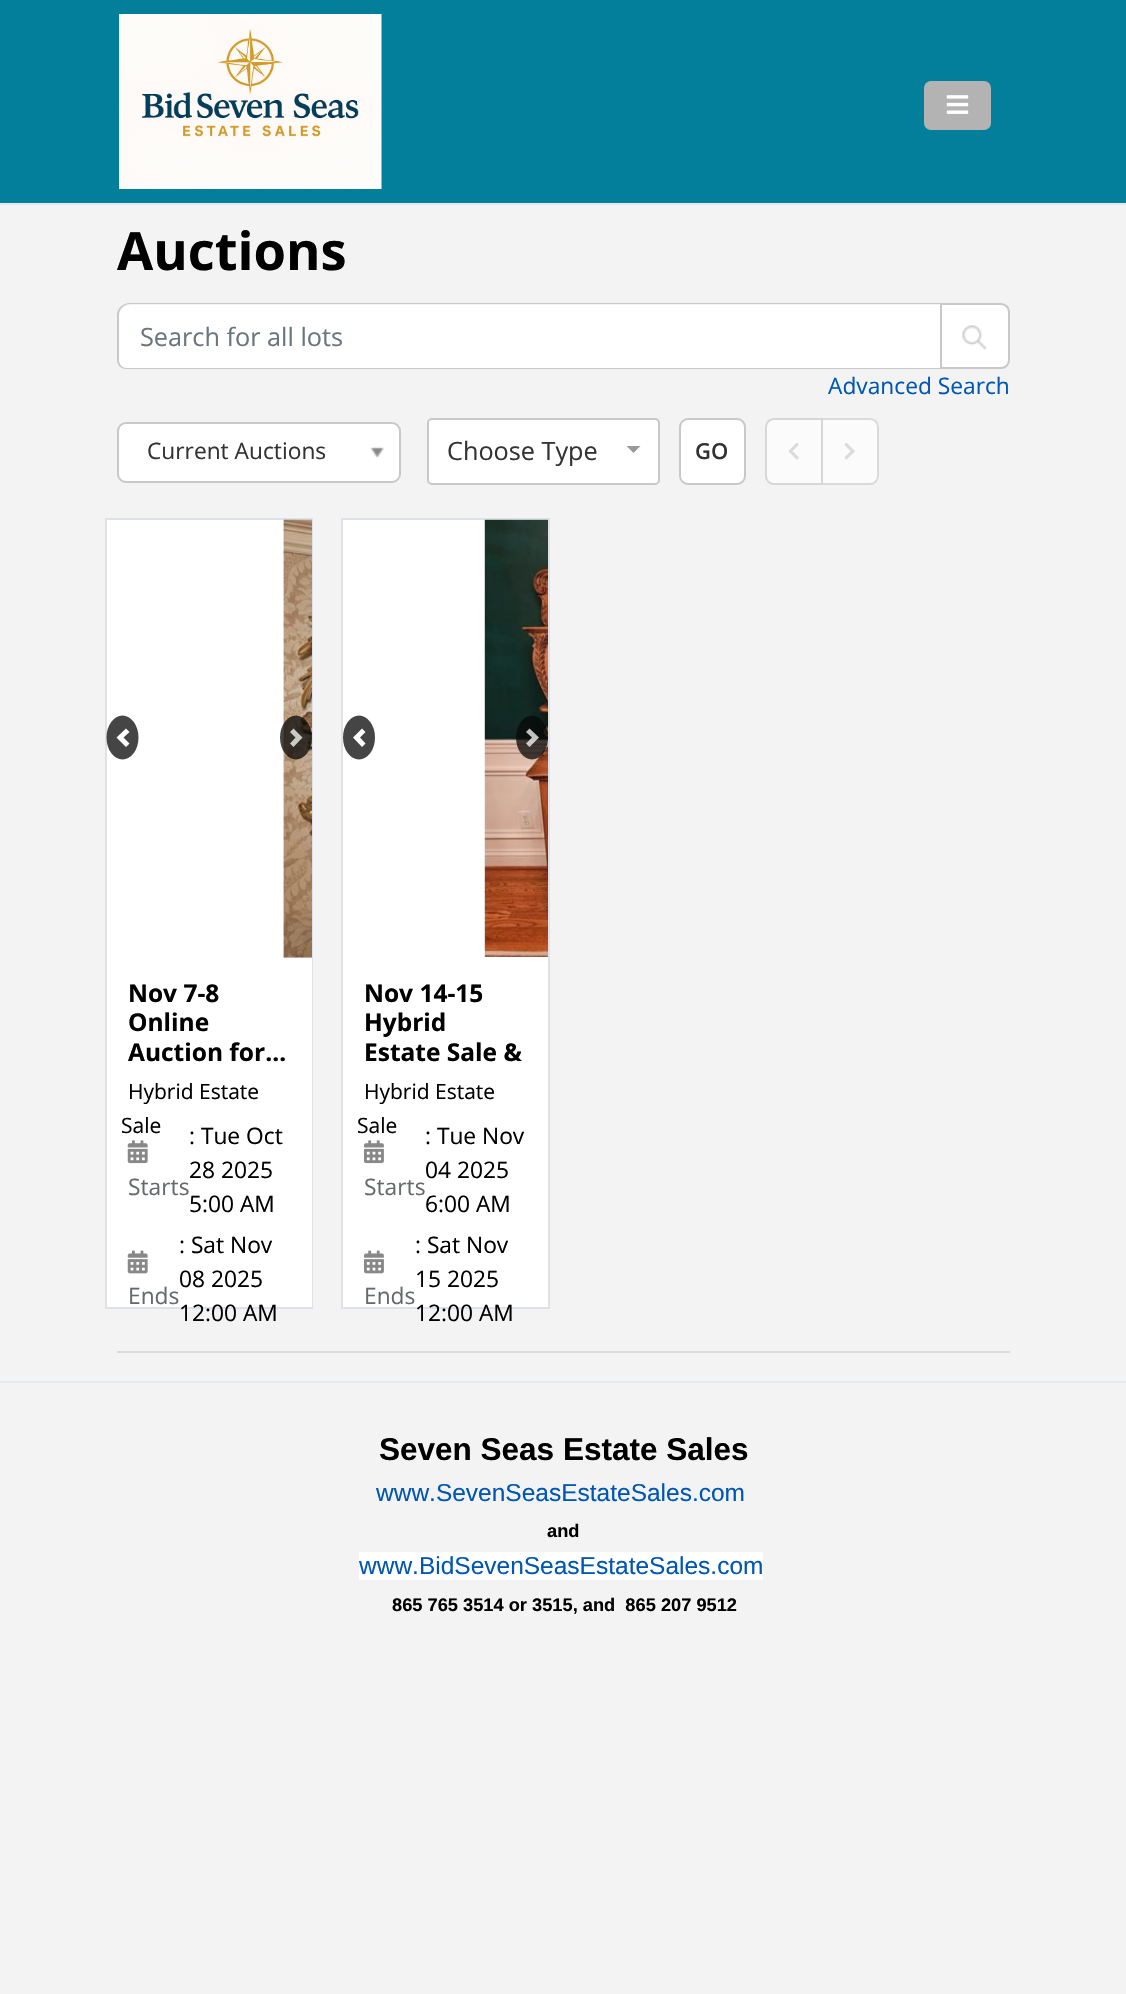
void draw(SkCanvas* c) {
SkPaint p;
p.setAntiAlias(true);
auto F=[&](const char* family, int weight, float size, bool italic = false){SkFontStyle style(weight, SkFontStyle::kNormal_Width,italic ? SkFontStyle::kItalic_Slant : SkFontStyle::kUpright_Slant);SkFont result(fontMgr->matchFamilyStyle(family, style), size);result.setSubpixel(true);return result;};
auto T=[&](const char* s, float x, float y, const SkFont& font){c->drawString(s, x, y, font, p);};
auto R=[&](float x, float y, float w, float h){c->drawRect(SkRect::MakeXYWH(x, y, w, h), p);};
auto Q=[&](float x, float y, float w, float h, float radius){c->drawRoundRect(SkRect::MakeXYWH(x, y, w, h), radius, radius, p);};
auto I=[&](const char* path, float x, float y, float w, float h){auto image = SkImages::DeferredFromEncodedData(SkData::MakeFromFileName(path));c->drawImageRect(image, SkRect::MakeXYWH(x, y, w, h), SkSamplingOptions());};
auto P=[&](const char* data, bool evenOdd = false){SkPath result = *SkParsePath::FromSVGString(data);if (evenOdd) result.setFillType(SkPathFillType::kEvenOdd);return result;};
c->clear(0xfff3f3f4);
p.setColor(0xff037f9b);
R(0,0,1126,203);
p.setColor(0xffe7eaec);
R(0,203,1126,2);
I("1.png",119,14,263,175);
p.setColor(0xffb3b3b3);
Q(924,81,67,49,7);
I("2.png",946,95,23,19);
auto f1 = F("Open Sans",700,52.5);
p.setColor(0xff000000);
T("Auctions",117,270,f1);
p.setColor(0xffffffff);
c->drawPath(P("M130 305h810v63h-814c-4 0-7-3-7-7v-45c0-6 5-11 11-11z"),p);
p.setColor(0xffc8c8c8);
c->drawPath(P("M130 303h810v66h-814c-5 0-9-4-9-9v-45c0-7 6-12 13-12zm0 1h810v64h-814c-4 0-7-4-7-8v-45c0-6 5-11 11-11z",true),p);
auto f2 = F("Open Sans",400,25.25);
p.setColor(0xff6c757d);
T("Search for all lots",140,346,f2);
p.setColor(0xffffffff);
c->drawPath(P("M941 304h60c4.5 0 8 3.5 8 8v48c0 4.5-3.5 8-8 8h-60z"),p);
p.setStroke(true);
p.setStrokeWidth(2);
p.setColor(0xffc8c8c8);
c->drawPath(P("M941 304h60c4.5 0 8 3.5 8 8v48c0 4.5-3.5 8-8 8h-60z"),p);
I("3.png",962,325,25,25);
auto f3 = F("Open Sans",400,22.75);
p.setStroke(false);
p.setColor(0xff0056b3);
T("Advanced Search",828,394,f3);
p.setColor(0xffffffff);
c->drawRoundRect(SkRect::MakeXYWH(118,423,282,59),8,8,p);
p.setStroke(true);
p.setColor(0xffc8c8c8);
c->drawRoundRect(SkRect::MakeXYWH(118,423,282,59),8,8,p);
p.setStroke(false);
p.setColor(0xff333333);
T("Current Auctions",147,459,f3);
I("4.png",370,447,14,11);
p.setColor(0xffffffff);
c->drawRoundRect(SkRect::MakeXYWH(428,419,231,65),4,4,p);
p.setStroke(true);
p.setColor(0xffc8c8c8);
c->drawRoundRect(SkRect::MakeXYWH(428,419,231,65),4,4,p);
p.setStroke(false);
p.setColor(0xff333333);
T("Choose Type",447,460,f2);
p.setColor(0xff999999);
c->drawPath(P("M626.5 446h14l-7 7z"),p);
p.setColor(0xffffffff);
c->drawRoundRect(SkRect::MakeXYWH(680,419,65,65),8,8,p);
p.setStroke(true);
p.setColor(0xffc8c8c8);
c->drawRoundRect(SkRect::MakeXYWH(680,419,65,65),8,8,p);
auto f4 = F("Open Sans",600,22);
p.setStroke(false);
p.setColor(0xff333333);
T("GO",695,459,f4);
p.setColor(0xfffbfbfb);
c->drawPath(P("M774 419h48v65h-48c-4.5 0-8-3.5-8-8v-49c0-4.5 3.5-8 8-8z"),p);
p.setStroke(true);
p.setColor(0xffd7d7d7);
c->drawPath(P("M774 419h48v65h-48c-4.5 0-8-3.5-8-8v-49c0-4.5 3.5-8 8-8z"),p);
I("5.png",788,443,11,17);
p.setStroke(false);
p.setColor(0xa6ffffff);
c->drawPath(P("M821 418h49c5 0 9 4 9 9v49c0 5-4 9-9 9h-49z"),p);
p.setStroke(true);
p.setColor(0xa6c8c8c8);
c->drawPath(P("M822 419h48c4.5 0 8 3.5 8 8v49c0 4.5-3.5 8-8 8h-48z"),p);
I("6.png",844,443,11,17);
p.setColor(0xffdee2e6);
c->drawRect(SkRect::MakeXYWH(106,519,206,789),p);
p.setStroke(false);
p.setColor(0xffffffff);
R(107,520,205,787);
p.setColor(0xff454545);
c->drawOval(SkRect::MakeXYWH(106.5,715.5,32,44),p);
p.setColor(0xffffffff);
c->drawPath(P("M126 728.5l-9.5 9l9.5 9.5l3.5-3.5l-6-6l6-5.5z"),p);
I("7.png",283,519,29,439);
p.setColor(0xbf070707);
c->drawOval(SkRect::MakeXYWH(280,715.5,32,44),p);
p.setColor(0xbfffffff);
c->drawPath(P("M293.5 728.5l-3.5 3.5l5.5 5.5l-5.5 6l3.5 3.5l9-9.5z"),p);
auto f5 = F("Open Sans",700,24.5);
p.setColor(0xff000000);
T("Nov 7-8",128,1002,f5);
T("Online",128,1031,f5);
T("Auction for…",128,1061,f5);
auto f6 = F("Open Sans",400,21);
T("Hybrid Estate",128,1099,f6);
T("Sale",121,1133,f6);
I("8.png",127,1140,21,24);
p.setColor(0xff676a6c);
T("Starts",128,1195,f3);
p.setColor(0xff000000);
T(": Tue Oct",189,1144,f3);
T("28 2025",189,1178,f3);
T("5:00 AM",189,1212,f3);
I("9.png",127,1250,21,24);
p.setColor(0xff676a6c);
T("Ends",128,1304,f3);
p.setColor(0xff000000);
T(": Sat Nov",179,1253,f3);
T("08 2025",179,1287,f3);
T("12:00 AM",179,1321,f3);
p.setColor(0xffffffff);
c->drawRect(SkRect::MakeXYWH(342,519,207,789),p);
p.setStroke(true);
p.setColor(0xffdee2e6);
c->drawRect(SkRect::MakeXYWH(342,519,207,789),p);
p.setStroke(false);
p.setColor(0xff454545);
c->drawOval(SkRect::MakeXYWH(343,715.5,32,44),p);
p.setColor(0xffffffff);
c->drawPath(P("M362 728.5l-9 9l9 9.5l3.5-3.5l-5.5-6l5.5-5.5z"),p);
I("10.png",484,519,64,438);
p.setColor(0xbf070707);
c->drawOval(SkRect::MakeXYWH(516,715.5,32,44),p);
p.setColor(0xbfffffff);
c->drawPath(P("M529.5 728.5l-3.5 3.5l6 5.5l-6 6l3.5 3.5l9.5-9.5z"),p);
p.setColor(0xff000000);
T("Nov 14-15",364,1002,f5);
T("Hybrid",364,1031,f5);
T("Estate Sale &",364,1061,f5);
T("Hybrid Estate",364,1099,f6);
T("Sale",357,1133,f6);
I("11.png",364,1140,20,24);
p.setColor(0xff676a6c);
T("Starts",364,1195,f3);
p.setColor(0xff000000);
T(": Tue Nov",425,1144,f3);
T("04 2025",425,1178,f3);
T("6:00 AM",425,1212,f3);
I("12.png",364,1250,20,24);
p.setColor(0xff676a6c);
T("Ends",364,1304,f3);
p.setColor(0xff000000);
T(": Sat Nov",415,1253,f3);
T("15 2025",415,1287,f3);
T("12:00 AM",415,1321,f3);
p.setColor(0xffdbdbdc);
R(117,1351,893,2);
p.setColor(0xffe7eaec);
R(0,1381,1126,2);
auto f7 = F("Liberation Sans",700,31.5);
p.setColor(0xff000000);
T("Seven Seas Estate Sales",379,1460,f7);
auto f8 = F("Liberation Sans",400,24.5);
p.setColor(0xff0056b3);
T("www.SevenSeasEstateSales.com",376,1501,f8);
auto f9 = F("Liberation Sans",700,18.25);
p.setColor(0xff000000);
T("and",547,1537,f9);
p.setColor(0xffffffff);
R(359,1552,404,28);
p.setColor(0xff0056b3);
T("www.BidSevenSeasEstateSales.com",359,1574,f8);
p.setColor(0xff000000);
T("865 765 3514 or 3515, and  865 207 9512",392,1611,f9);
}
